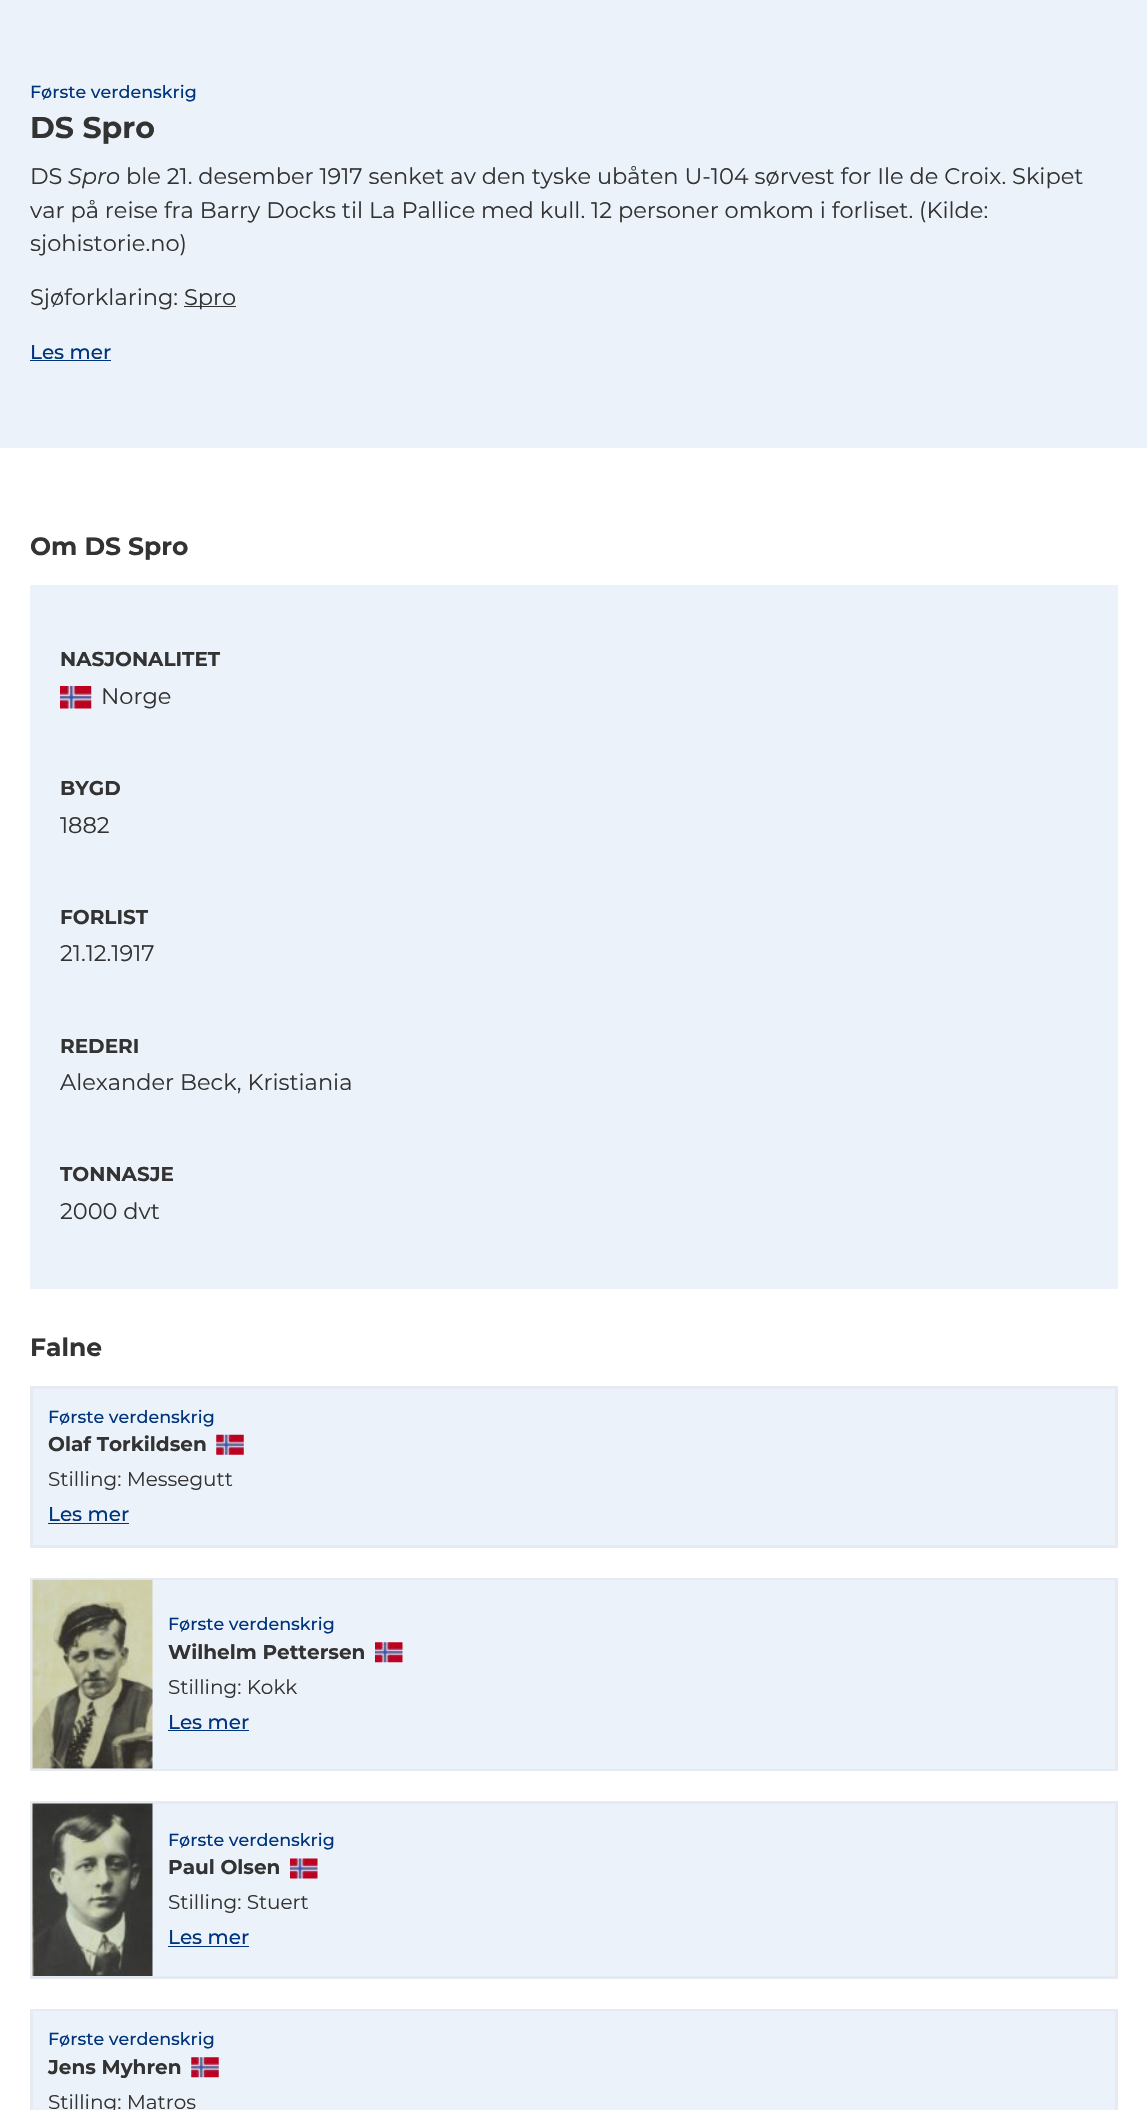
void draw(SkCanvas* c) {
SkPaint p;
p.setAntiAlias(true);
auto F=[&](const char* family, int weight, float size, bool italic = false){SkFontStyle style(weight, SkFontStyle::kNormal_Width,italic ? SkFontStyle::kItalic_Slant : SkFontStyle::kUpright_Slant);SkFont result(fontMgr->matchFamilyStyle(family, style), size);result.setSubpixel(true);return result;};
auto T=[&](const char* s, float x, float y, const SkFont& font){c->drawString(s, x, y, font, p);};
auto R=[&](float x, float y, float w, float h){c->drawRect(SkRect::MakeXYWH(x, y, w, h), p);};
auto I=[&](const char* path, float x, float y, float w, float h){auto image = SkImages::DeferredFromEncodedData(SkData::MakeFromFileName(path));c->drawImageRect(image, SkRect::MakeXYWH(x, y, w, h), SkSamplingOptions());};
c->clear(0xffffffff);
p.setColor(0xffecf2f9);
R(0,0,1147,448);
auto f1 = F("Montserrat",500,17.5);
p.setColor(0xff00357e);
T("Første verdenskrig",30,98,f1);
auto f2 = F("Montserrat",700,30);
p.setColor(0xff333333);
T("DS Spro",30,138,f2);
auto f3 = F("Montserrat",400,22.5);
T("DS",30,184,f3);
auto f4 = F("Montserrat",400,22.5,true);
T("Spro",68,184,f4);
T("ble 21. desember 1917 senket av den tyske ubåten U-104 sørvest for Ile de Croix. Skipet",126,184,f3);
T("var på reise fra Barry Docks til La Pallice med kull. 12 personer omkom i forliset. (Kilde:",30,218,f3);
T("sjohistorie.no)",30,251,f3);
T("Sjøforklaring:",30,305,f3);
R(184,306,52,1);
T("Spro",184,305,f3);
auto f5 = F("Montserrat",500,20);
p.setColor(0xff00357e);
T("Les mer",30,359,f5);
R(30,360,81,1);
auto f6 = F("Montserrat",700,25);
p.setColor(0xff333333);
T("Om DS Spro",30,555,f6);
p.setColor(0xffecf2f9);
R(30,585,1088,704);
auto f7 = F("Montserrat",700,20);
p.setColor(0xff333333);
T("NASJONALITET",60,666,f7);
I("1.png",60,686,32,23);
T("Norge",101,704,f3);
T("BYGD",60,795,f7);
T("1882",60,833,f3);
T("FORLIST",60,924,f7);
T("21.12.1917",60,961,f3);
T("REDERI",60,1053,f7);
T("Alexander Beck, Kristiania",60,1090,f3);
T("TONNASJE",60,1181,f7);
T("2000 dvt",60,1219,f3);
T("Falne",30,1356,f6);
p.setColor(0xffecf2f9);
c->drawRect(SkRect::MakeXYWH(31.5,1387.5,1085,159),p);
p.setStroke(true);
p.setStrokeWidth(3);
p.setColor(0xffe6ebf1);
c->drawRect(SkRect::MakeXYWH(31.5,1387.5,1085,159),p);
p.setStroke(false);
p.setColor(0xff00357e);
T("Første verdenskrig",48,1423,f1);
p.setColor(0xff333333);
T("Olaf Torkildsen",48,1451,f7);
I("2.png",216,1434,28,21);
auto f8 = F("Montserrat",400,20);
T("Stilling: Messegutt",48,1486,f8);
p.setColor(0xff00357e);
T("Les mer",48,1521,f5);
R(48,1523,81,1);
p.setStroke(true);
p.setColor(0xffe6ebf1);
c->drawRect(SkRect::MakeXYWH(31.5,1579.5,1085,190),p);
p.setStroke(false);
p.setColor(0xffecf2f9);
R(33,1580,1082,189);
I("3.png",32,1579,121,190);
p.setColor(0xff00357e);
T("Første verdenskrig",168,1630,f1);
p.setColor(0xff333333);
T("Wilhelm Pettersen",168,1659,f7);
I("4.png",375,1642,28,21);
T("Stilling: Kokk",168,1694,f8);
p.setColor(0xff00357e);
T("Les mer",168,1729,f5);
R(168,1730,81,1);
p.setColor(0xffecf2f9);
R(152,1804,963,172);
p.setStroke(true);
p.setColor(0xffe6ebf1);
c->drawRect(SkRect::MakeXYWH(31.5,1802.5,1085,175),p);
I("5.png",32,1803,121,173);
p.setStroke(false);
p.setColor(0xff00357e);
T("Første verdenskrig",168,1846,f1);
p.setColor(0xff333333);
T("Paul Olsen",168,1874,f7);
I("6.png",290,1858,28,21);
T("Stilling: Stuert",168,1909,f8);
p.setColor(0xff00357e);
T("Les mer",168,1944,f5);
R(168,1946,81,1);
p.setStroke(true);
p.setColor(0xffe6ebf1);
c->drawRect(SkRect::MakeXYWH(31.5,2010.5,1085,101),p);
p.setStroke(false);
p.setColor(0xffecf2f9);
R(33,2011,1082,99);
p.setColor(0xff00357e);
T("Første verdenskrig",48,2045,f1);
p.setColor(0xff333333);
T("Jens Myhren",48,2074,f7);
I("7.png",191,2057,28,21);
T("Stilling: Matros",48,2109,f8);
}
